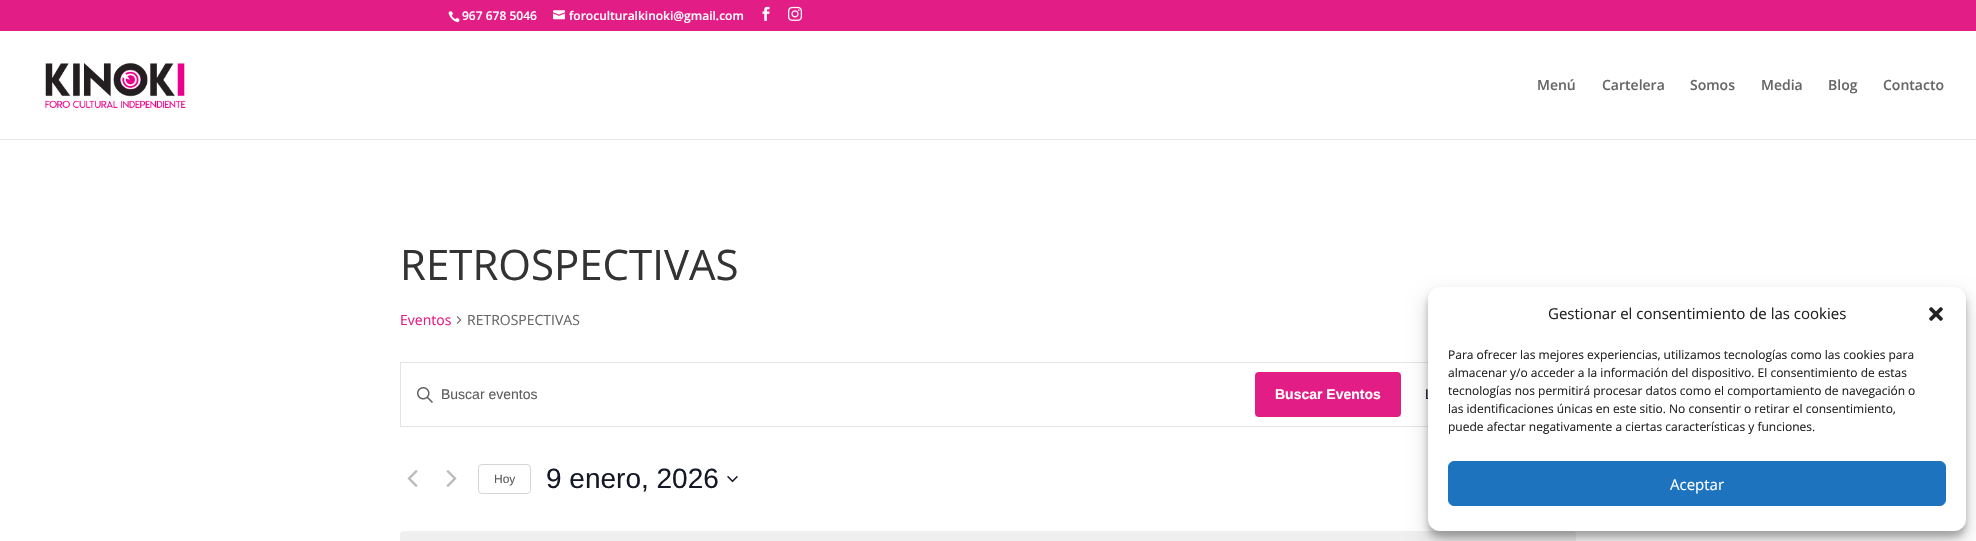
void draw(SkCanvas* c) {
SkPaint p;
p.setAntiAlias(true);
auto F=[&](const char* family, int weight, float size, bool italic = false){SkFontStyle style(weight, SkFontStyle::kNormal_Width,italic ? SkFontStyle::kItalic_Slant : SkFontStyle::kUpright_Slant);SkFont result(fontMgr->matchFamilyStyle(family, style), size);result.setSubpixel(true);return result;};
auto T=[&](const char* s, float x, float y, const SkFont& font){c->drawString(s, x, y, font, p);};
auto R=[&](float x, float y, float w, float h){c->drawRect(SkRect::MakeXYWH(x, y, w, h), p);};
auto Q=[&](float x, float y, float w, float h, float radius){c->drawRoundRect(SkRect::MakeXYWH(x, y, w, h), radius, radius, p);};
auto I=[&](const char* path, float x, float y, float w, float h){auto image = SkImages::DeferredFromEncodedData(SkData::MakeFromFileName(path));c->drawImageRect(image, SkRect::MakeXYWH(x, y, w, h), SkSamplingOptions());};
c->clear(0xffffffff);
p.setColor(0xffe31d86);
R(0,0,1976,31);
I("1.png",448,11,12,12);
auto f1 = F("Open Sans",600,12);
p.setColor(0xffffffff);
T("967 678 5046",462,20,f1);
I("2.png",553,10,12,10);
T("foroculturalkinoki@gmail.com",569,20,f1);
I("3.png",762,6,8,15);
I("4.png",788,6,14,15);
p.setColor(0xffe6e6e6);
R(0,139,1976,1);
I("5.png",45,62,141,47);
auto f2 = F("Open Sans",600,14);
p.setColor(0xff666666);
T("Menú",1537,90,f2);
T("Cartelera",1602,90,f2);
T("Somos",1690,90,f2);
T("Media",1761,90,f2);
T("Blog",1828,90,f2);
T("Contacto",1883,90,f2);
auto f3 = F("Open Sans",400,42);
p.setColor(0xff333333);
T("RETROSPECTIVAS",400,280,f3);
auto f4 = F("Open Sans",400,14);
p.setColor(0xffe31d86);
T("Eventos",400,325,f4);
I("6.png",456,316,6,8);
p.setColor(0xff666666);
T("RETROSPECTIVAS",467,325,f4);
p.setStroke(true);
p.setStrokeWidth(1);
p.setColor(0xffe4e4e4);
c->drawRect(SkRect::MakeXYWH(400.5,362.5,1175,64),p);
I("7.png",417,387,16,16);
auto f5 = F("Liberation Sans",400,14);
p.setStroke(false);
p.setColor(0xff5d5d5d);
T("Buscar eventos",441,399,f5);
p.setColor(0xffe31d86);
Q(1255,372,146,45,4);
auto f6 = F("Liberation Sans",700,14);
p.setColor(0xffffffff);
T("Buscar Eventos",1275,399,f6);
p.setColor(0xff141827);
T("L",1425,399,f5);
I("8.png",407,470,11,17);
I("9.png",446,470,11,17);
p.setStroke(true);
p.setColor(0xffd5d5d5);
c->drawRoundRect(SkRect::MakeXYWH(478.5,464.5,52,29),3.5,3.5,p);
auto f7 = F("Liberation Sans",400,12);
p.setStroke(false);
p.setColor(0xff5d5d5d);
T("Hoy",494,483,f7);
auto f8 = F("Liberation Sans",400,28);
p.setColor(0xff141827);
T("9 enero, 2026",546,488,f8);
I("10.png",727,475,11,8);
p.setColor(0xffefeff0);
Q(400,531,1176,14,4);
p.setColor(0x3b000000);
p.setMaskFilter(SkMaskFilter::MakeBlur(kNormal_SkBlurStyle, 3));
c->drawRoundRect(SkRect::MakeXYWH(1428,293,538,244),12,12,p);
p.setMaskFilter(nullptr);
p.setColor(0x30000000);
p.setMaskFilter(SkMaskFilter::MakeBlur(kNormal_SkBlurStyle, 10));
c->drawRoundRect(SkRect::MakeXYWH(1428,297,538,244),12,12,p);
p.setMaskFilter(nullptr);
p.setColor(0xffffffff);
Q(1428,287,538,244,12);
auto f9 = F("Open Sans",400,15);
p.setColor(0xff222222);
T("Gestionar el consentimiento de las cookies",1548,319,f9);
I("11.png",1929,307,14,14);
auto f10 = F("Open Sans",400,12);
T("Para ofrecer las mejores experiencias, utilizamos tecnologías como las cookies para",1448,359,f10);
T("almacenar y/o acceder a la información del dispositivo. El consentimiento de estas",1448,377,f10);
T("tecnologías nos permitirá procesar datos como el comportamiento de navegación o",1448,395,f10);
T("las identificaciones únicas en este sitio. No consentir o retirar el consentimiento,",1448,413,f10);
T("puede afectar negativamente a ciertas características y funciones.",1448,431,f10);
p.setColor(0xff1e73be);
c->drawRoundRect(SkRect::MakeXYWH(1448.5,461.5,497,44),5.5,5.5,p);
p.setStroke(true);
c->drawRoundRect(SkRect::MakeXYWH(1448.5,461.5,497,44),5.5,5.5,p);
p.setStroke(false);
p.setColor(0xffffffff);
T("Aceptar",1670,490,f9);
}
